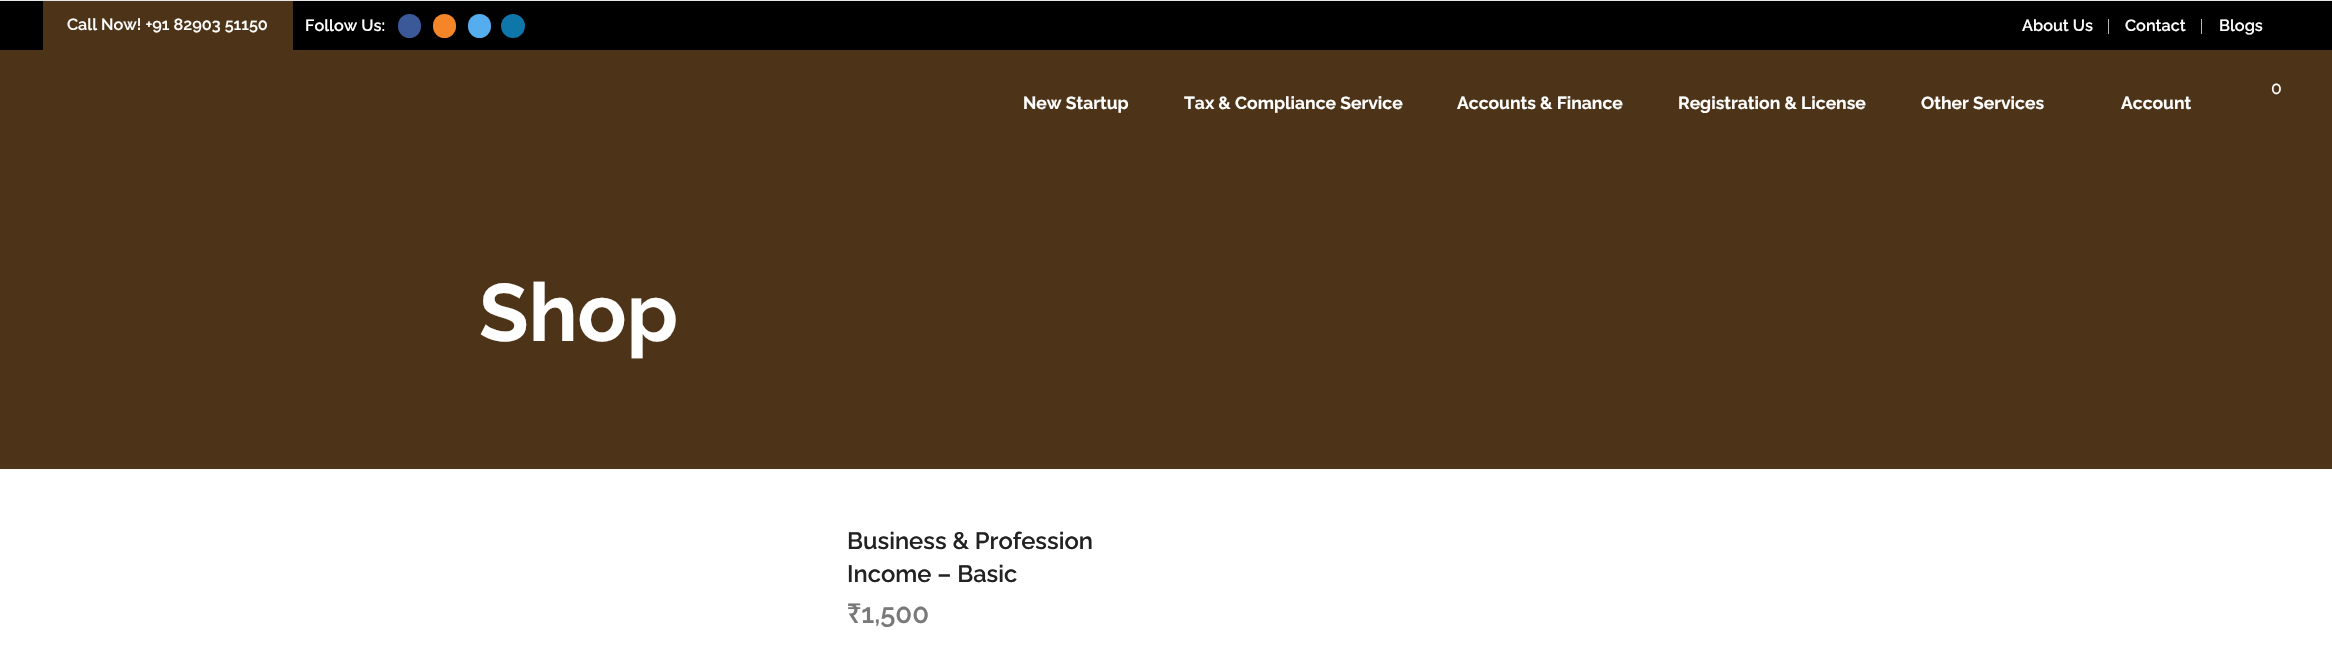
void draw(SkCanvas* c) {
SkPaint p;
p.setAntiAlias(true);
auto F=[&](const char* family, int weight, float size, bool italic = false){SkFontStyle style(weight, SkFontStyle::kNormal_Width,italic ? SkFontStyle::kItalic_Slant : SkFontStyle::kUpright_Slant);SkFont result(fontMgr->matchFamilyStyle(family, style), size);result.setSubpixel(true);return result;};
auto T=[&](const char* s, float x, float y, const SkFont& font){c->drawString(s, x, y, font, p);};
auto R=[&](float x, float y, float w, float h){c->drawRect(SkRect::MakeXYWH(x, y, w, h), p);};
auto Q=[&](float x, float y, float w, float h, float radius){c->drawRoundRect(SkRect::MakeXYWH(x, y, w, h), radius, radius, p);};
c->clear(0xffffffff);
p.setColor(0xff000000);
R(0,1,2332,49);
p.setColor(0xff4d3418);
R(43,1,250,49);
auto f1 = F("Raleway",600,16.25);
p.setColor(0xffffffff);
T("Call Now! +91 82903 51150",67,30,f1);
T("Follow Us:",305,31,f1);
p.setColor(0xff3b5998);
Q(398,14,23,24,11.5);
p.setColor(0xfff58529);
Q(433,14,23,24,11.5);
p.setColor(0xff55acee);
Q(468,14,23,24,11.5);
p.setColor(0xff0e76a8);
c->drawCircle(513,26,12,p);
p.setColor(0xffffffff);
T("About Us",2022,31,f1);
p.setColor(0xffb6b6b6);
R(2108,19,1,15);
p.setColor(0xffffffff);
T("Contact",2125,31,f1);
p.setColor(0xffb6b6b6);
R(2201,19,1,15);
p.setColor(0xffffffff);
T("Blogs",2219,31,f1);
p.setColor(0xffe7e7e7);
R(0,0,2332,1);
p.setColor(0xff4d3418);
R(0,50,2332,419);
auto f2 = F("Raleway",500,17.5);
p.setColor(0xffffffff);
T("0",2271,94,f2);
auto f3 = F("Raleway",700,17.5);
T("New Startup",1023,109,f3);
T("Tax & Compliance Service",1184,109,f3);
T("Accounts & Finance",1457,109,f3);
T("Registration & License",1678,109,f3);
T("Other Services",1921,109,f3);
T("Account",2121,109,f3);
auto f4 = F("Raleway",700,81);
T("Shop",479,341,f4);
auto f5 = F("Raleway",600,23.75);
p.setColor(0xff222222);
T("Business & Profession",847,549,f5);
T("Income – Basic",847,582,f5);
auto f6 = F("Raleway",600,27.5);
p.setColor(0xff797979);
T("₹1,500",847,623,f6);
}
